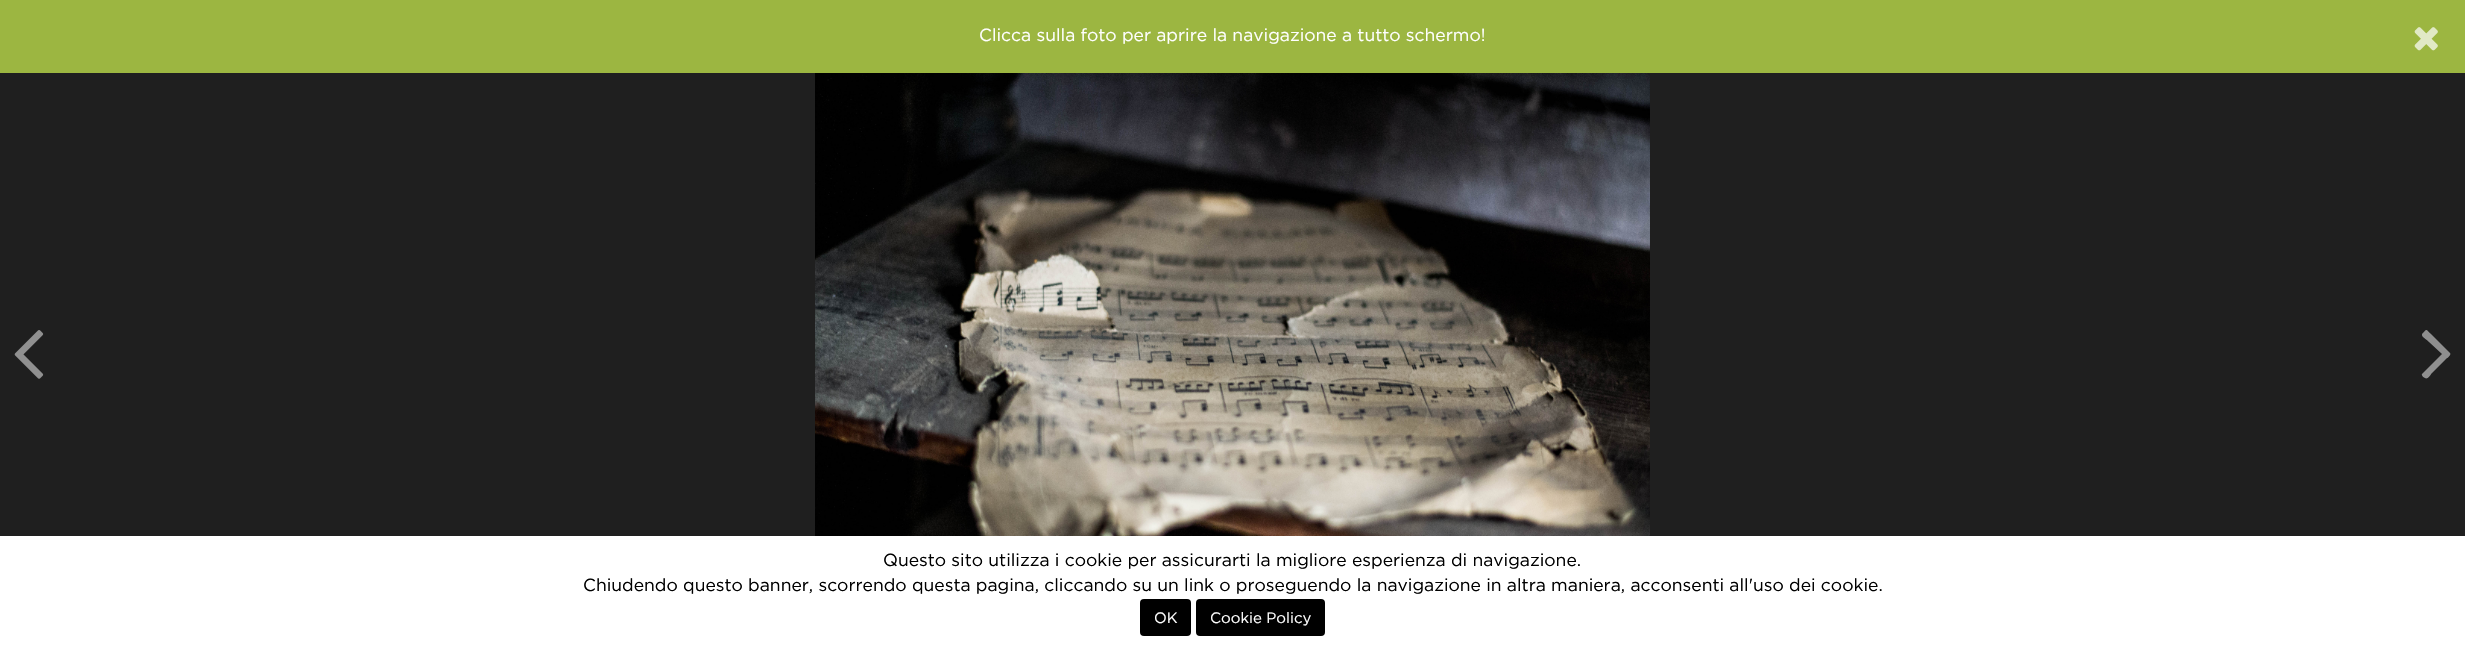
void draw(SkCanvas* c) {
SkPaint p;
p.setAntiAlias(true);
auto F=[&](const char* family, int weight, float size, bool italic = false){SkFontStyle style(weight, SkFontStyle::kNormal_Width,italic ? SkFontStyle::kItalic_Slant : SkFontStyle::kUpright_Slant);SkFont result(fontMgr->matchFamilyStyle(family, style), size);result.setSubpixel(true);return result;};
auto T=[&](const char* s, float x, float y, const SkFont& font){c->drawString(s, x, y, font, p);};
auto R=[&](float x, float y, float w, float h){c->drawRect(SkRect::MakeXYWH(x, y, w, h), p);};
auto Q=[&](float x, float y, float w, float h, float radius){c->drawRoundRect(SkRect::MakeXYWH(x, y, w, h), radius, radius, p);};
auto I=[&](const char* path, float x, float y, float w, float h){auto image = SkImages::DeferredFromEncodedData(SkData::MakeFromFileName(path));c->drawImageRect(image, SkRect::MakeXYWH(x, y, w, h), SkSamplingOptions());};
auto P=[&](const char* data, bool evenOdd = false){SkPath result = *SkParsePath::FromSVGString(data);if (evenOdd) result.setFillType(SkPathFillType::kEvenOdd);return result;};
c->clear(0xff1f1f1f);
p.setColor(0xff9cb641);
R(0,0,2465,73);
auto f1 = F("Gotham",400,17.5);
p.setColor(0xffffffff);
T("Clicca sulla foto per aprire la navigazione a tutto schermo!",979,41,f1);
I("1.png",2414,27,24,24);
I("2.png",14,330,30,49);
I("3.png",815,73,835,463);
p.setColor(0xff8f8f8f);
c->drawPath(P("M2450 353c2 2-4 6-4 6l-15 15c0 1-4 6-6 4c-1 0-4-3-3-4l20-20l-13-12c-5-5-10-6-5-10c3-4 3-1 7 2z"),p);
p.setColor(0xffffffff);
R(0,536,2465,112);
p.setColor(0xff000000);
T("Questo sito utilizza i cookie per assicurarti la migliore esperienza di navigazione.",883,566,f1);
T("Chiudendo questo banner, scorrendo questa pagina, cliccando su un link o proseguendo la navigazione in altra maniera, acconsenti all'uso dei cookie.",583,591,f1);
Q(1140,599,51,37,4);
auto f2 = F("Gotham",400,15);
p.setColor(0xffffffff);
T("OK",1154,623,f2);
p.setColor(0xff000000);
Q(1196,599,129,37,4);
p.setColor(0xffffffff);
T("Cookie Policy",1210,623,f2);
}
